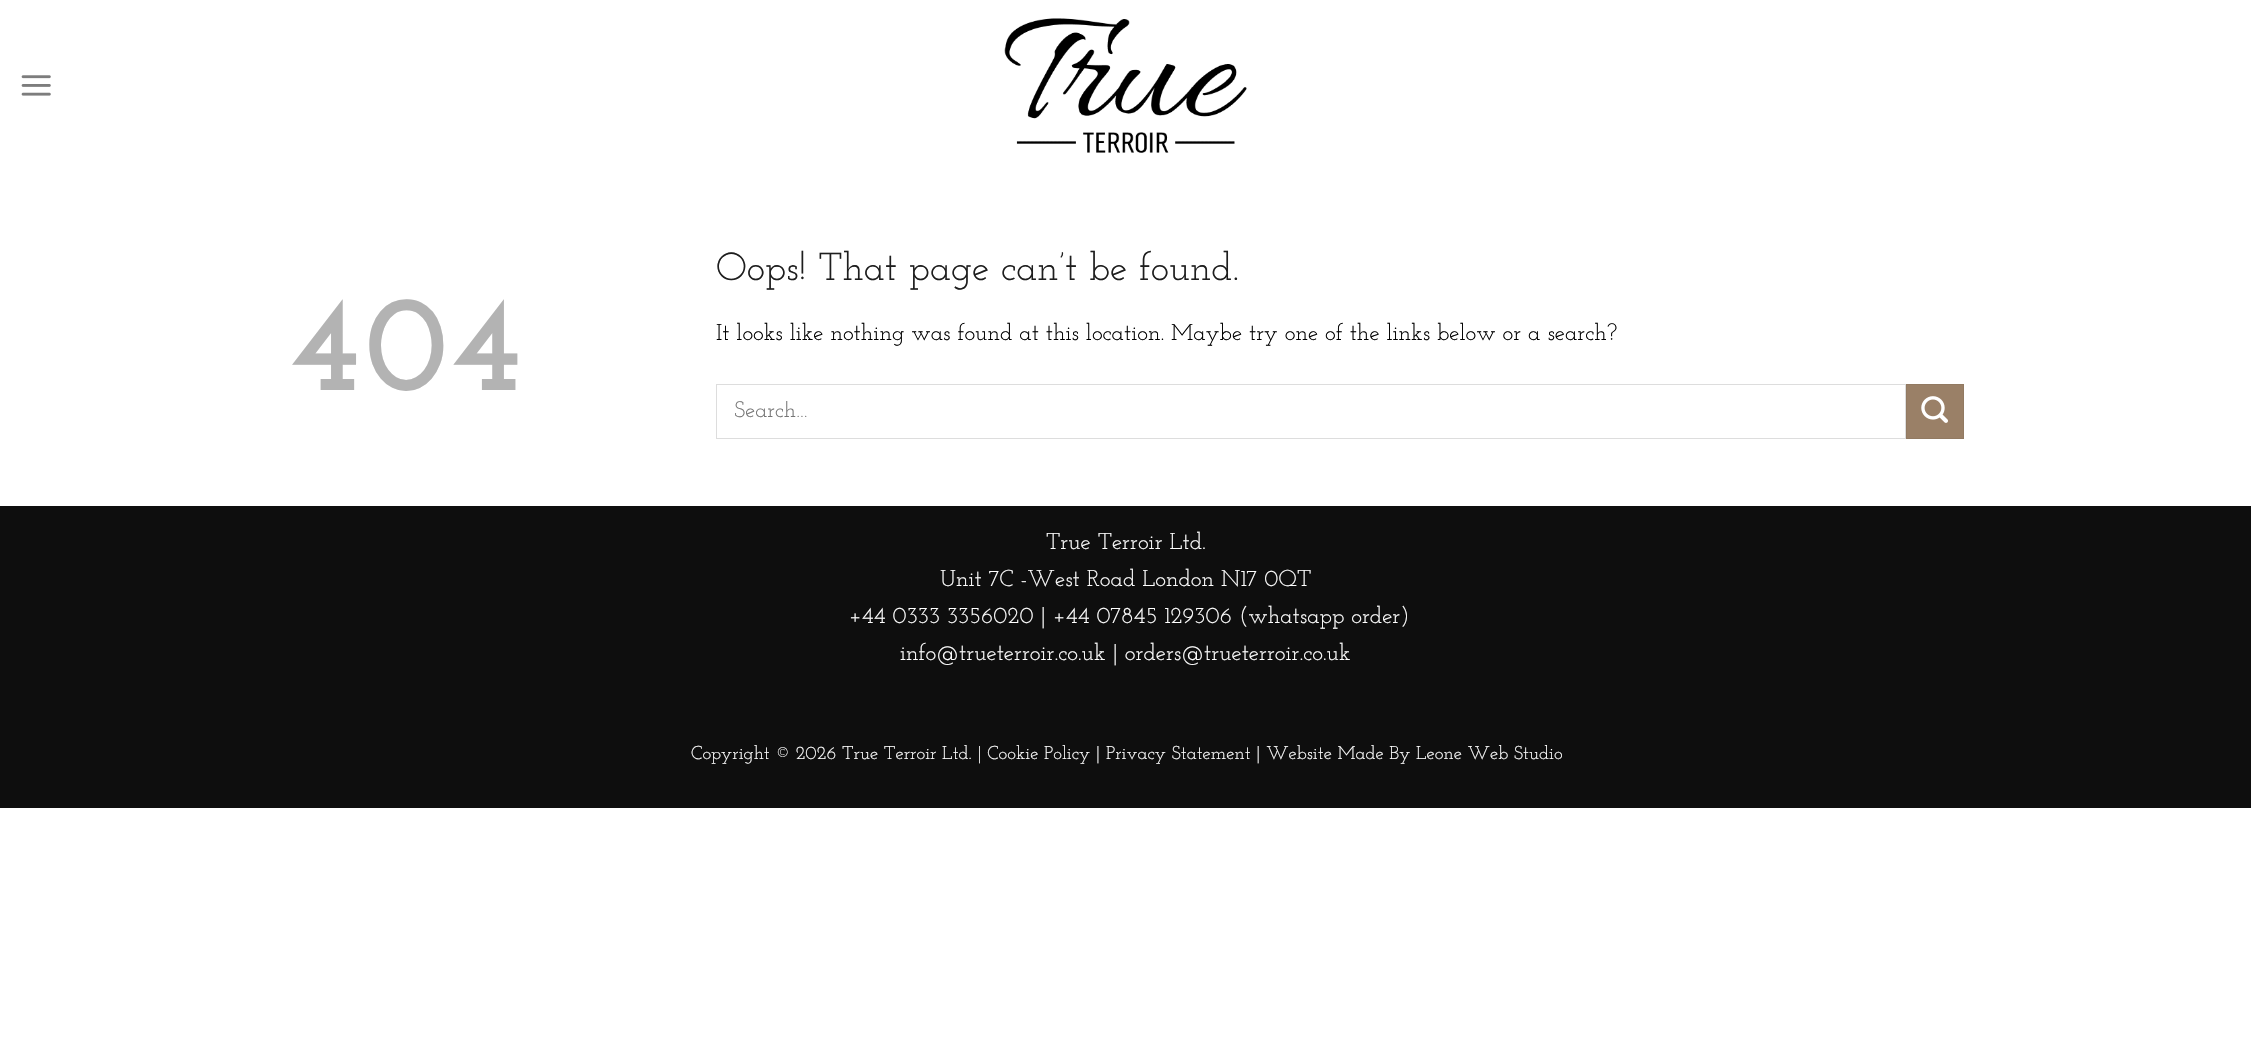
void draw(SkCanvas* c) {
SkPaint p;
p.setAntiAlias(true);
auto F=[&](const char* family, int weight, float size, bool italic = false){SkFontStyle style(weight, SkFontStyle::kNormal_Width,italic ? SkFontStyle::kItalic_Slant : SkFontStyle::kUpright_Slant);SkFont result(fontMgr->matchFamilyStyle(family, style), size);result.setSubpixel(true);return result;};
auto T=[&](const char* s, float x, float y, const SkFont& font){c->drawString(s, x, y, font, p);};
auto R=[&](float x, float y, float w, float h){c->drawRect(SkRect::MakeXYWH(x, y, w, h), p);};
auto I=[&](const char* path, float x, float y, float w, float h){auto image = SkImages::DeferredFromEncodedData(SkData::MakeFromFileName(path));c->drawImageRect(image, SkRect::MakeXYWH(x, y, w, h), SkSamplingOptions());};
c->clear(0xffffffff);
I("1.png",21,75,30,21);
I("2.png",1004,18,243,135);
auto f1 = F("Josefin Slab",700,138);
p.setColor(0xffb3b3b3);
T("404",288,390,f1);
auto f2 = F("Josefin Slab",400,39.1);
p.setColor(0xff1e1e1e);
T("Oops! That page can’t be found.",716,280,f2);
auto f3 = F("Josefin Slab",400,23);
p.setColor(0xff000000);
T("It looks like nothing was found at this location. Maybe try one of the links below or a search?",716,340,f3);
p.setStroke(true);
p.setStrokeWidth(1);
p.setColor(0xffdddddd);
c->drawRect(SkRect::MakeXYWH(716.5,384.5,1189,54),p);
c->save();
c->clipRect(SkRect::MakeXYWH(734,401,1150,22));
auto f4 = F("Josefin Slab",400,22.5);
p.setStroke(false);
p.setColor(0xff757575);
T("Search…",734,417,f4);
c->restore();
p.setColor(0xff9a8067);
c->drawRect(SkRect::MakeXYWH(1906.5,384.5,57,54),p);
p.setStroke(true);
p.setColor(0xff927a62);
c->drawRect(SkRect::MakeXYWH(1906.5,384.5,57,54),p);
I("3.png",1921,396,27,27);
p.setStroke(false);
p.setColor(0xff0e0e0e);
R(0,506,2251,302);
p.setColor(0xffffffff);
T("True Terroir Ltd.",1046,549,f3);
T("Unit 7C -West Road London N17 0QT",940,586,f3);
T("+44 0333 3356020 | +44 07845 129306 (whatsapp order)",849,623,f3);
T("info@trueterroir.co.uk | orders@trueterroir.co.uk",900,660,f3);
auto f5 = F("Josefin Slab",400,18.65);
T("Copyright © 2026 True Terroir Ltd. | Cookie Policy | Privacy Statement | Website Made By Leone Web Studio",691,759,f5);
}
